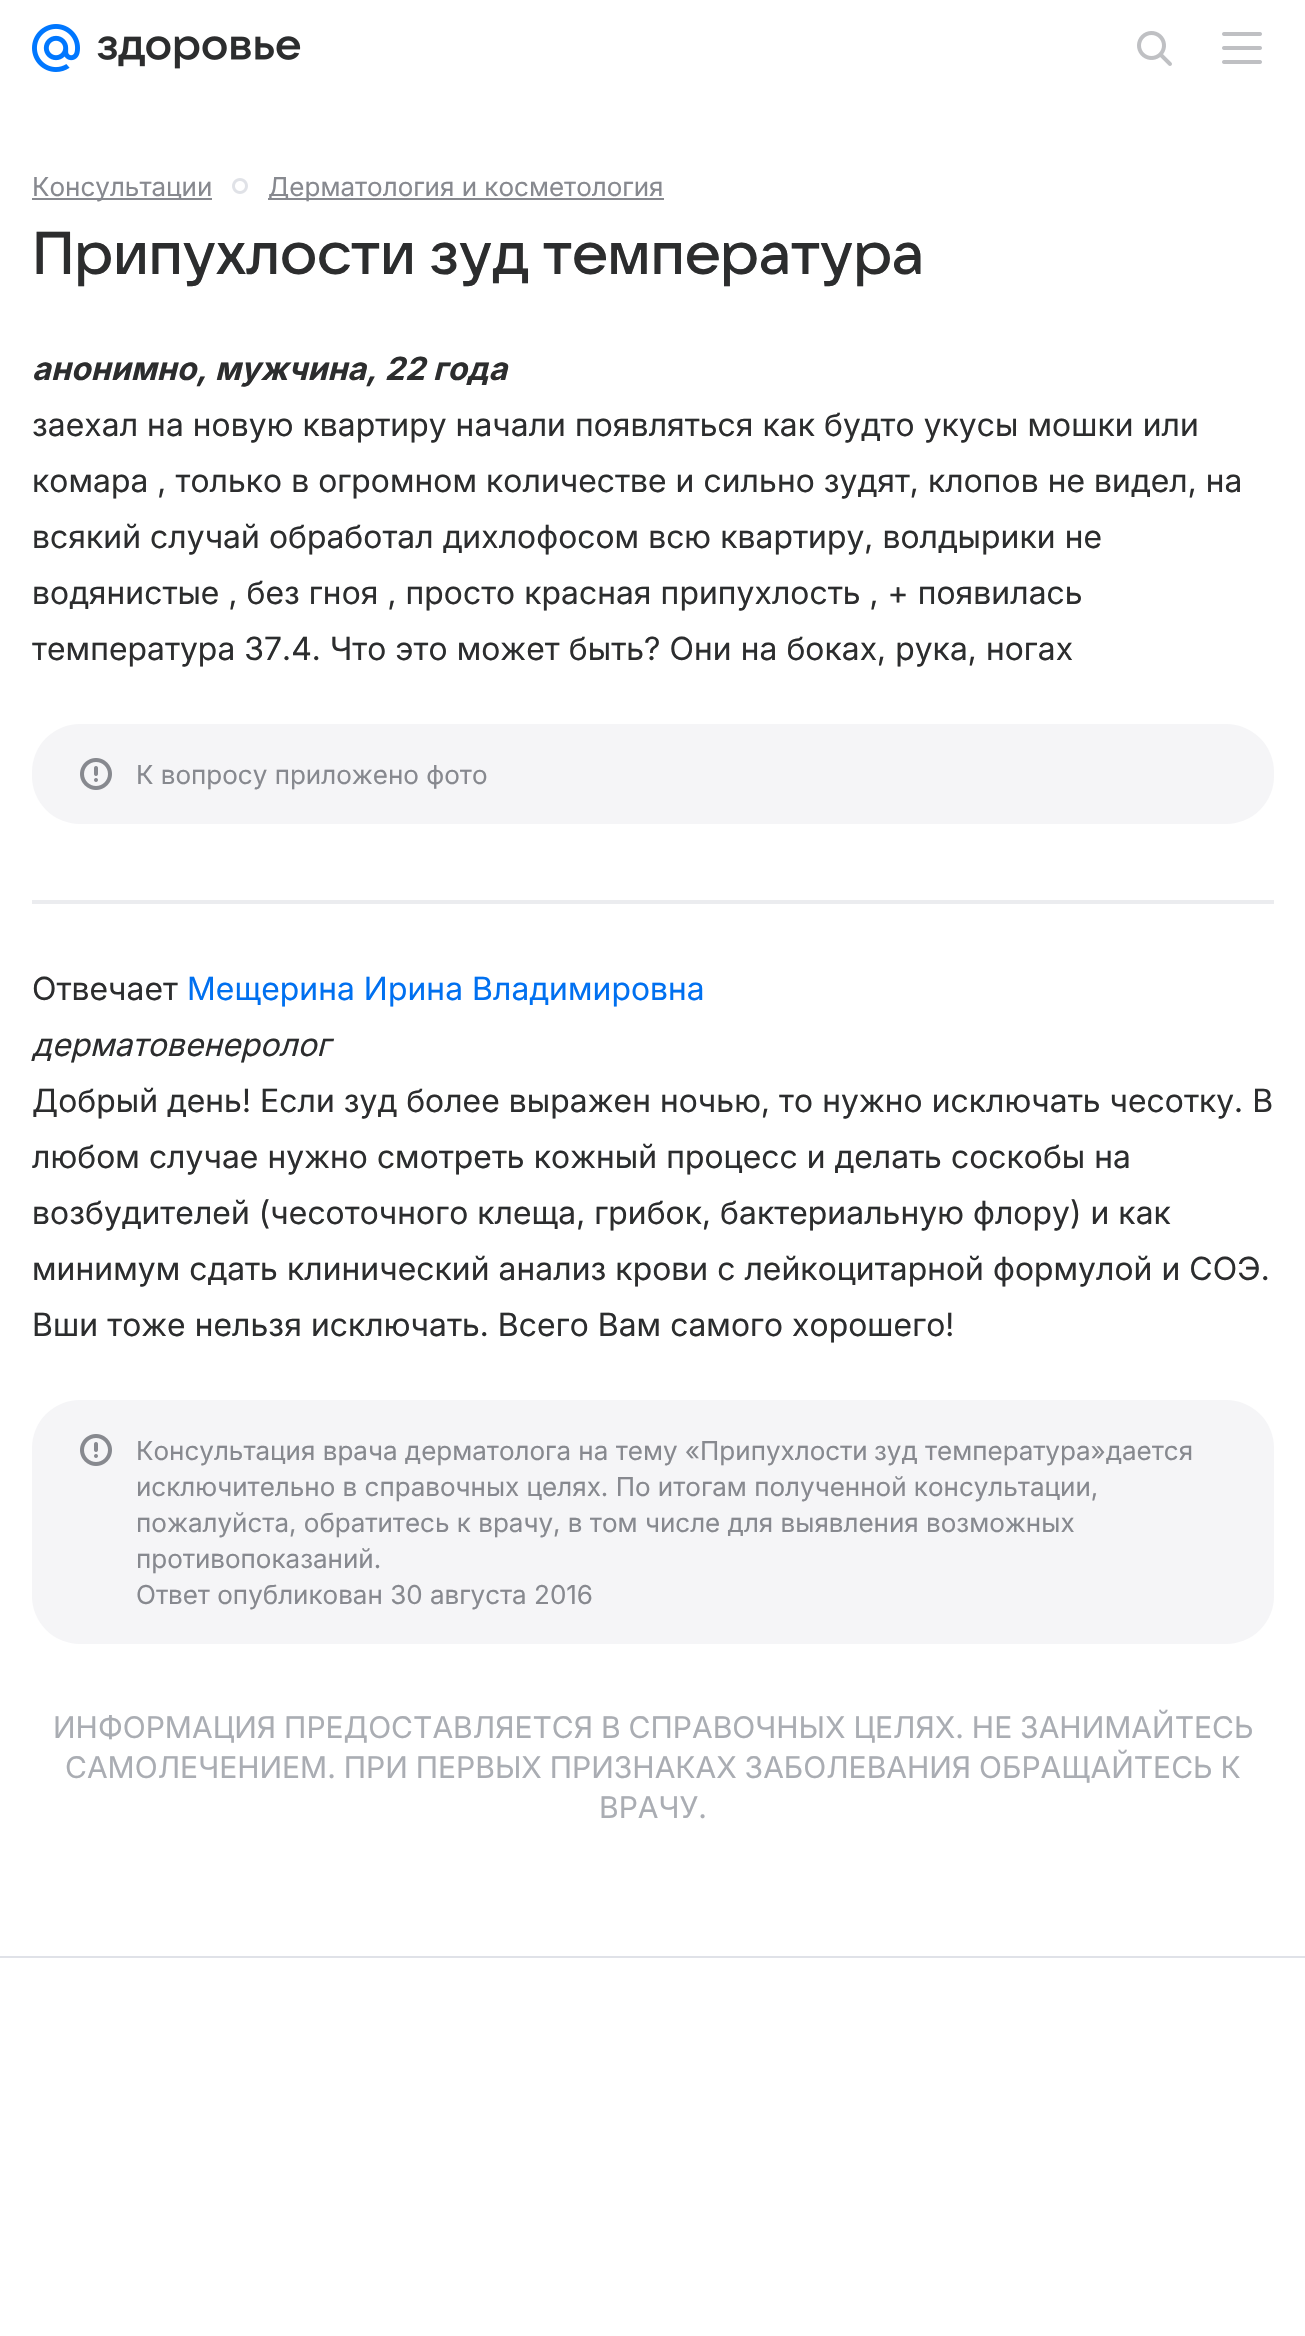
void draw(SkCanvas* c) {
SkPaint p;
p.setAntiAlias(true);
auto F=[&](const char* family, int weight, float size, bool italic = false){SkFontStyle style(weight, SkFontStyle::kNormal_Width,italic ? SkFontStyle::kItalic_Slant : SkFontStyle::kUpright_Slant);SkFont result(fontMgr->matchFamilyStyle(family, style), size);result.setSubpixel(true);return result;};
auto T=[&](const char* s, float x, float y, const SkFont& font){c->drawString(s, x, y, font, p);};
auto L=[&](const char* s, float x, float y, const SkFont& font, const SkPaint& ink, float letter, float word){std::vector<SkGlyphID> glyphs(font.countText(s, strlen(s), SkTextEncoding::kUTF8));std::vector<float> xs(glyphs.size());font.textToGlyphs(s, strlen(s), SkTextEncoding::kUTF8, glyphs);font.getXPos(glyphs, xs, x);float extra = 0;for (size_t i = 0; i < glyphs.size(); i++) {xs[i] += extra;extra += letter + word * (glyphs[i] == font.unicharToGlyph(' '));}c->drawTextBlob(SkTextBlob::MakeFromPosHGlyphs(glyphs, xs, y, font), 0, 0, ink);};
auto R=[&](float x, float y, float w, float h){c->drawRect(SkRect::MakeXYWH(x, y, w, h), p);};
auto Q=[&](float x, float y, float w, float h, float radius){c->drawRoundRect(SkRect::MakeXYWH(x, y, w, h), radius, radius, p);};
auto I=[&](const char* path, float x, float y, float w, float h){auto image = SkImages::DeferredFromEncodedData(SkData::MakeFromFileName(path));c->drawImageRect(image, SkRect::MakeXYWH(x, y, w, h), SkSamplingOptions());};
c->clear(0xffffffff);
I("1.png",32,24,48,48);
I("2.png",97,36,204,33);
I("3.png",1137,31,35,35);
I("4.png",1222,32,40,32);
p.setColor(0xff87898f);
R(32,198,180,2);
auto f1 = F("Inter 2",400,26);
T("Консультации",32,196,f1);
I("5.png",232,178,16,16);
R(268,198,396,2);
T("Дерматология и косметология",268,196,f1);
auto f2 = F("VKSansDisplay",500,60);
p.setColor(0xff2c2d2e);
L("Припухлости зуд температура",32,274,f2,p,-.3,0);
auto f3 = F("Inter",700,32,true);
L("анонимно, мужчина, 22 года",32,380,f3,p,.1,0);
auto f4 = F("Inter",400,32);
L("заехал на новую квартиру начали появляться как будто укусы мошки или",32,436,f4,p,.1,0);
L("комара , только в огромном количестве и сильно зудят, клопов не видел, на",32,492,f4,p,.1,0);
L("всякий случай обработал дихлофосом всю квартиру, волдырики не",32,548,f4,p,.1,0);
L("водянистые , без гноя , просто красная припухлость , + появилась",32,604,f4,p,.1,0);
L("температура 37.4. Что это может быть? Они на боках, рука, ногах",32,660,f4,p,.1,0);
p.setColor(0xfff5f5f7);
Q(32,724,1242,100,48);
I("6.png",80,758,32,32);
p.setColor(0xff87898f);
T("К вопросу приложено фото",136,784,f1);
p.setColor(0xffebecef);
R(32,900,1242,4);
p.setColor(0xff2c2d2e);
L("Отвечает",32,1000,f4,p,.1,0);
p.setColor(0xff0070f0);
L("Мещерина Ирина Владимировна",187,1000,f4,p,.1,0);
auto f5 = F("Inter",400,32,true);
p.setColor(0xff2c2d2e);
L("дерматовенеролог",32,1056,f5,p,.1,0);
L("Добрый день! Если зуд более выражен ночью, то нужно исключать чесотку. В",32,1112,f4,p,.1,0);
L("любом случае нужно смотреть кожный процесс и делать соскобы на",32,1168,f4,p,.1,0);
L("возбудителей (чесоточного клеща, грибок, бактериальную флору) и как",32,1224,f4,p,.1,0);
L("минимум сдать клинический анализ крови с лейкоцитарной формулой и СОЭ.",32,1280,f4,p,.1,0);
L("Вши тоже нельзя исключать. Всего Вам самого хорошего!",32,1336,f4,p,.1,0);
p.setColor(0xfff5f5f7);
Q(32,1400,1242,244,48);
I("6.png",80,1434,32,32);
p.setColor(0xff87898f);
T("Консультация врача дерматолога на тему «Припухлости",136,1460,f1);
T("зуд",874,1460,f1);
T("температура»дается",925,1460,f1);
T("исключительно в справочных целях. По итогам полученной консультации,",136,1496,f1);
T("пожалуйста, обратитесь к врачу, в том числе для выявления возможных",136,1532,f1);
T("противопоказаний.",136,1568,f1);
T("Ответ опубликован 30 августа 2016",136,1604,f1);
auto f6 = F("Inter 2",400,30);
p.setColor(0xffaaadb3);
L("ИНФОРМАЦИЯ ПРЕДОСТАВЛЯЕТСЯ В СПРАВОЧНЫХ ЦЕЛЯХ. НЕ ЗАНИМАЙТЕСЬ",53,1738,f6,p,0,-.5);
L("САМОЛЕЧЕНИЕМ. ПРИ ПЕРВЫХ ПРИЗНАКАХ ЗАБОЛЕВАНИЯ ОБРАЩАЙТЕСЬ К",65,1778,f6,p,0,-.5);
T("ВРАЧУ.",599,1818,f6);
p.setColor(0xffe0e2e8);
R(0,1956,1305,2);
}
